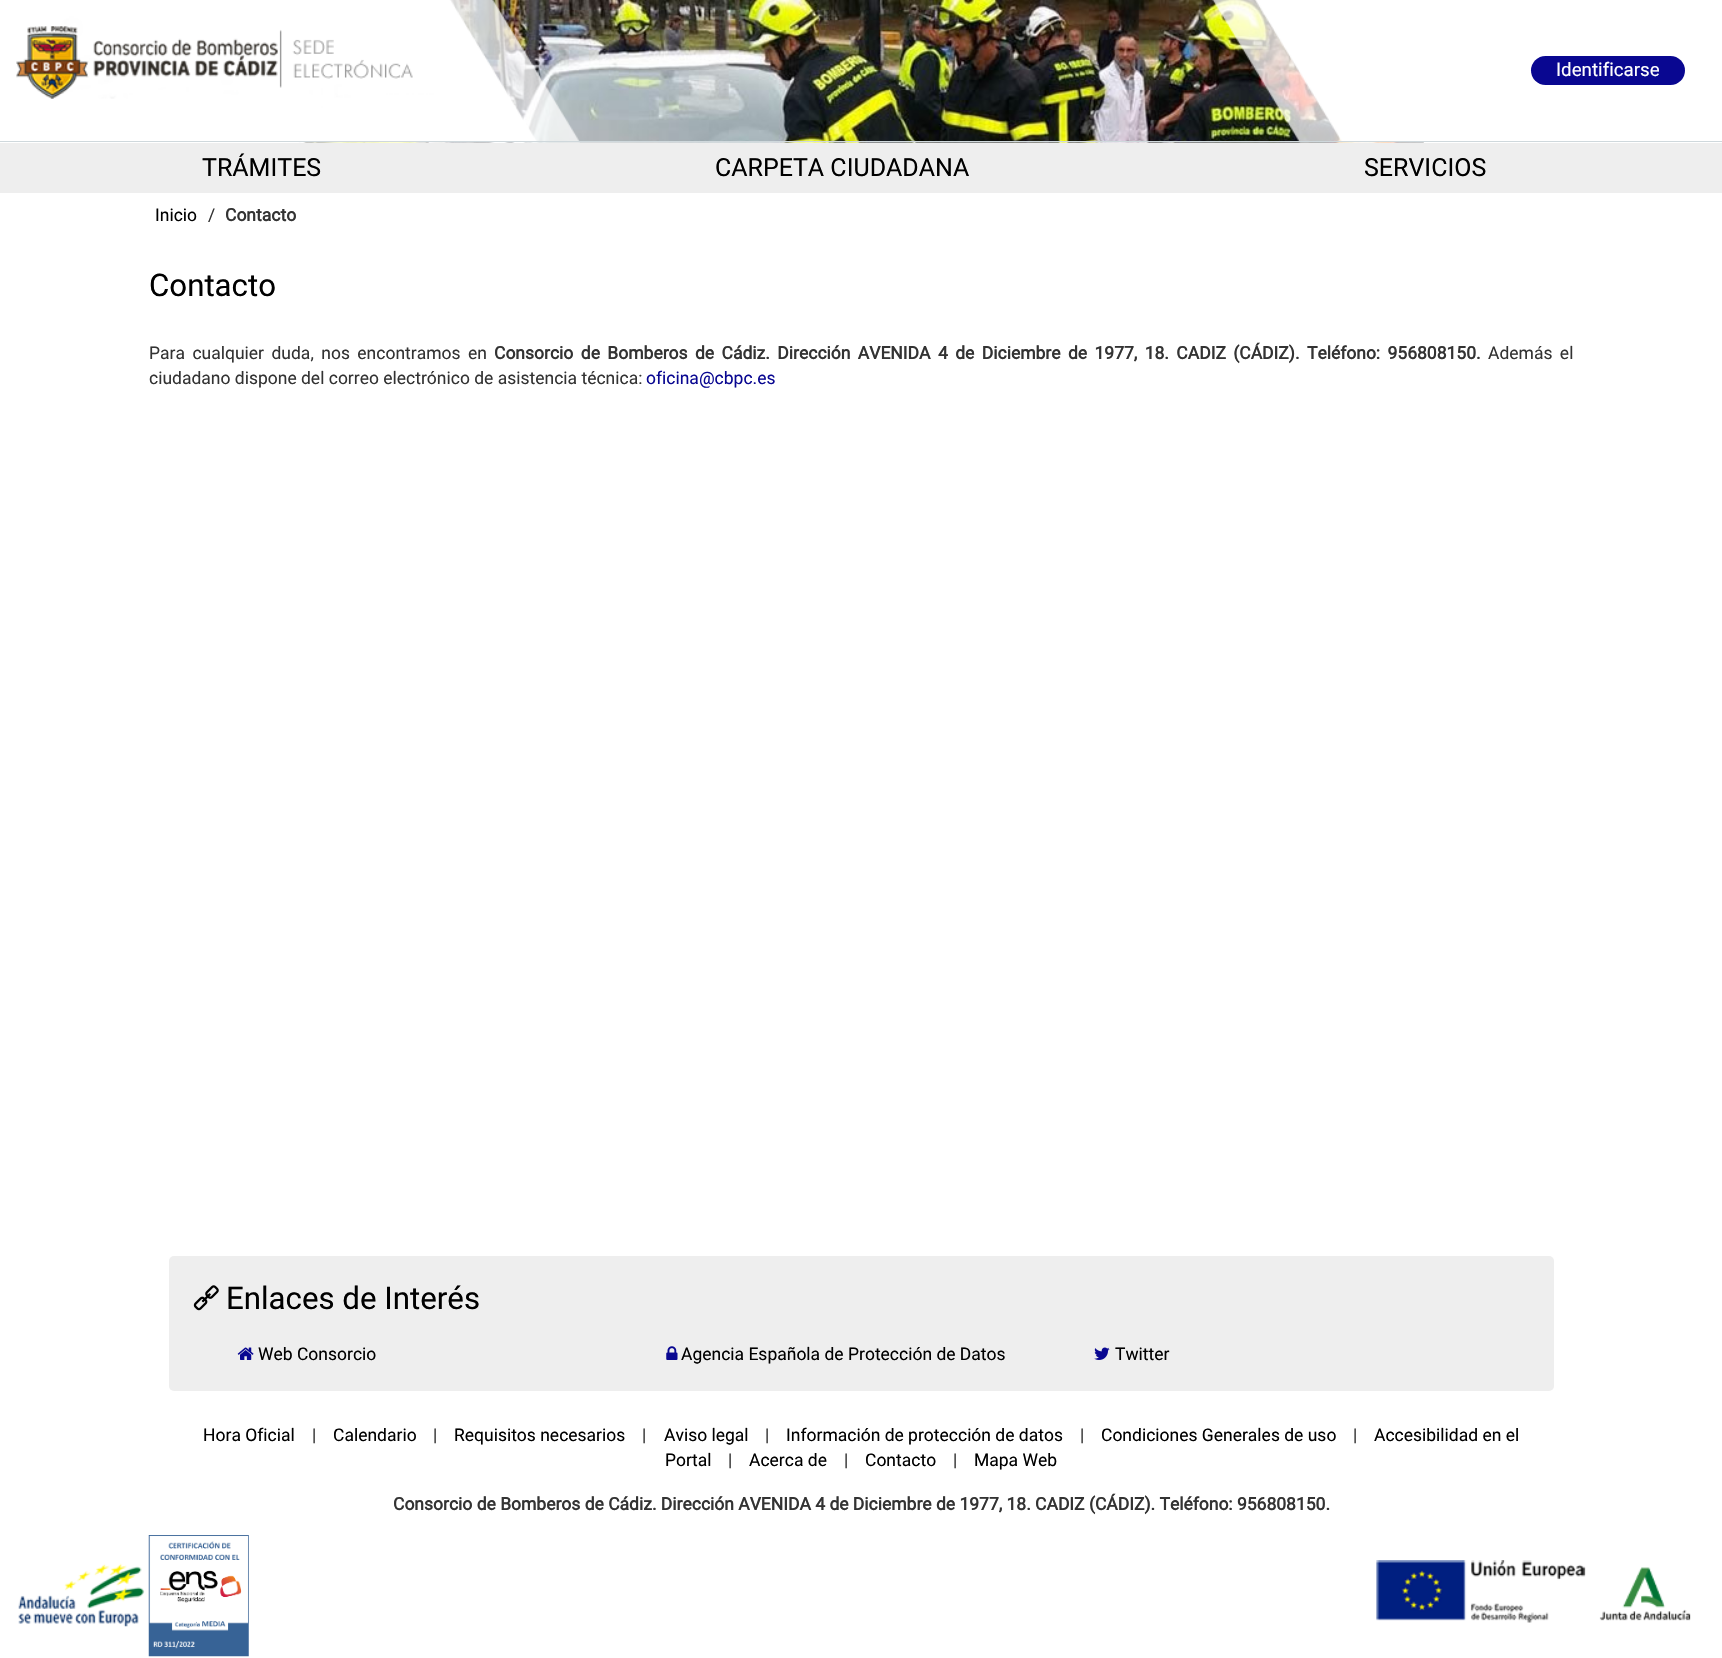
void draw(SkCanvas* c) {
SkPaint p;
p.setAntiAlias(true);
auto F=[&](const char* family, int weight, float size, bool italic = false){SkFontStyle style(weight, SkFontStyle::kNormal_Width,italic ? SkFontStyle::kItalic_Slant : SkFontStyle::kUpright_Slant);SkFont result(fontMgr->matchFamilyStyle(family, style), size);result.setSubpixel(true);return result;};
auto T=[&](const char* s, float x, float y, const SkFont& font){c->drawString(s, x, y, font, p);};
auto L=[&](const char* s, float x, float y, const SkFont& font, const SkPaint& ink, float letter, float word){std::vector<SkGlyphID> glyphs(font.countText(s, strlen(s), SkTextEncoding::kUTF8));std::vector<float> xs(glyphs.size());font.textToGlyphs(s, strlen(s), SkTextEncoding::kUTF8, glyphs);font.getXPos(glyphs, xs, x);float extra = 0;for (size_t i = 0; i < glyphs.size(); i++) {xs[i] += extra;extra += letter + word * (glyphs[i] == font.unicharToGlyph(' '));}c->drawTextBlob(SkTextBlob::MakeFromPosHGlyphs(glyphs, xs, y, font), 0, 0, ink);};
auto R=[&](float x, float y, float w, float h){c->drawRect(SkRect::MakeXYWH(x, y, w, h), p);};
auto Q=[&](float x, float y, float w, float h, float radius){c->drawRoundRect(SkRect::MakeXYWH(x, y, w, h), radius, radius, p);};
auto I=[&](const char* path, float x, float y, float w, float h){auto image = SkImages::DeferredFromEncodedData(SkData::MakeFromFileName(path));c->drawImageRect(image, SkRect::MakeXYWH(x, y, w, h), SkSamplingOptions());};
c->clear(0xffffffff);
I("2.png",51,0,1373,143);
I("1.png",16,26,397,73);
p.setColor(0xffcfd8dc);
R(0,141,1722,1);
p.setColor(0xff090791);
Q(1531,56,154,29,14.5);
auto f1 = F("Roboto",400,18.75);
p.setColor(0xffffffff);
T("Identificarse",1556,76,f1);
p.setColor(0xffeeeeee);
R(0,143,1722,50);
auto f2 = F("Roboto",400,25);
p.setColor(0xff000000);
T("TRÁMITES",202,176,f2);
T("CARPETA CIUDADANA",715,176,f2);
T("SERVICIOS",1364,176,f2);
auto f3 = F("Roboto",400,17.5);
T("Inicio",155,221,f3);
p.setColor(0xff333333);
T("/",208,221,f3);
auto f4 = F("Roboto",700,17.5);
T("Contacto",225,221,f4);
auto f5 = F("Roboto",400,31.25);
p.setColor(0xff000000);
T("Contacto",149,296,f5);
p.setColor(0xff333333);
L("Para cualquier duda, nos encontramos en",149,359,f3,p,0,3.1);
L("Consorcio de Bomberos de Cádiz. Dirección AVENIDA 4 de Diciembre de 1977, 18. CADIZ (CÁDIZ). Teléfono: 956808150.",494,359,f4,p,0,3.1);
L("Además el",1488,359,f3,p,0,3.1);
T("ciudadano dispone del correo electrónico de asistencia técnica:",149,384,f3);
p.setColor(0xff090791);
T("oficina@cbpc.es",646,384,f3);
p.setColor(0xffeeeeee);
Q(169,1256,1385,135,5);
I("3.png",193,1285,26,26);
p.setColor(0xff000000);
T("Enlaces de Interés",226,1309,f5);
I("4.png",237,1347,17,13);
T("Web Consorcio",258,1360,f3);
I("5.png",666,1346,12,14);
T("Agencia Española de Protección de Datos",681,1360,f3);
I("6.png",1094,1347,16,13);
T("Twitter",1115,1360,f3);
T("Hora Oficial",203,1441,f3);
p.setColor(0xff333333);
T("|",312,1441,f3);
p.setColor(0xff000000);
T("Calendario",333,1441,f3);
p.setColor(0xff333333);
T("|",433,1441,f3);
p.setColor(0xff000000);
T("Requisitos necesarios",454,1441,f3);
p.setColor(0xff333333);
T("|",642,1441,f3);
p.setColor(0xff000000);
T("Aviso legal",664,1441,f3);
p.setColor(0xff333333);
T("|",765,1441,f3);
p.setColor(0xff000000);
T("Información de protección de datos",786,1441,f3);
p.setColor(0xff333333);
T("|",1080,1441,f3);
p.setColor(0xff000000);
T("Condiciones Generales de uso",1101,1441,f3);
p.setColor(0xff333333);
T("|",1353,1441,f3);
p.setColor(0xff000000);
T("Accesibilidad en el",1374,1441,f3);
T("Portal",665,1466,f3);
p.setColor(0xff333333);
T("|",728,1466,f3);
p.setColor(0xff000000);
T("Acerca de",749,1466,f3);
p.setColor(0xff333333);
T("|",844,1466,f3);
p.setColor(0xff000000);
T("Contacto",865,1466,f3);
p.setColor(0xff333333);
T("|",953,1466,f3);
p.setColor(0xff000000);
T("Mapa Web",974,1466,f3);
p.setColor(0xff333333);
T("Consorcio de Bomberos de Cádiz. Dirección AVENIDA 4 de Diciembre de 1977, 18. CADIZ (CÁDIZ). Teléfono: 956808150.",393,1510,f4);
I("7.png",18,1563,127,64);
I("8.png",148,1535,101,122);
I("9.png",1376,1560,315,63);
}
